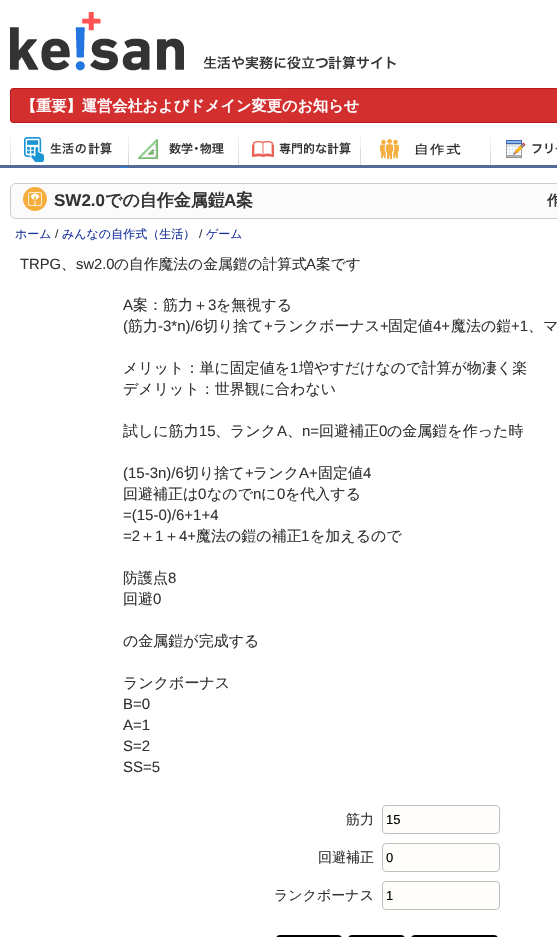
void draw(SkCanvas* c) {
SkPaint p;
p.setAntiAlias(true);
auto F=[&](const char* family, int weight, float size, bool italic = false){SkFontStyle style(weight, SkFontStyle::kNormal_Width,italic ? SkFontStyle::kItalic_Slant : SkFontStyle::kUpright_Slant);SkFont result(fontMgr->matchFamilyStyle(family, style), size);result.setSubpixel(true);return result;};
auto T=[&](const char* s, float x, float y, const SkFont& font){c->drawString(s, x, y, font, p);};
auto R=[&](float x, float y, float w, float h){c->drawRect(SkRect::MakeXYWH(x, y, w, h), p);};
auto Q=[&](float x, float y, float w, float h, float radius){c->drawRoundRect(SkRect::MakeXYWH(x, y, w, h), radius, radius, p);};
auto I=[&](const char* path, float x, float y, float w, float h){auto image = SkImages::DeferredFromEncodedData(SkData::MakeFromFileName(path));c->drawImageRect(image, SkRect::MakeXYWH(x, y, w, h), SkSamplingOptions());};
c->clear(0xffffffff);
p.setColor(0xff546a99);
R(0,165,557,3);
I("1.png",10,12,174,59);
I("2.png",203,56,193,14);
p.setColor(0xffd32f2f);
c->drawRoundRect(SkRect::MakeXYWH(10.5,88.5,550,34),2.5,2.5,p);
p.setStroke(true);
p.setStrokeWidth(1);
p.setColor(0xffb71c1c);
c->drawRoundRect(SkRect::MakeXYWH(10.5,88.5,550,34),2.5,2.5,p);
auto f1 = F("WenQuanYi Zen Hei",700,15.2);
p.setStroke(false);
p.setColor(0xffffffff);
T("【重要】運営会社およびドメイン変更のお知らせ",21,111,f1);
I("3.png",10,134,118,34);
I("4.png",128,134,96,31);
I("5.png",238,134,113,31);
I("6.png",360,134,101,31);
I("7.png",490,134,67,31);
p.setColor(0xfffbfbfb);
Q(10,183,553,36,6);
I("8.png",23,187,24,24);
p.setStroke(true);
p.setColor(0xffcccccc);
c->drawRoundRect(SkRect::MakeXYWH(10.5,183.5,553,35),5.5,5.5,p);
auto f2 = F("Liberation Sans",700,17);
p.setStroke(false);
p.setColor(0xff333333);
T("SW2.0",54,206,f2);
auto f3 = F("WenQuanYi Zen Hei",700,17);
T("での自作金属鎧",105,206,f3);
T("A",224,206,f2);
T("案",236,206,f3);
auto f4 = F("WenQuanYi Zen Hei",700,14);
T("作",547,205,f4);
auto f5 = F("WenQuanYi Zen Hei",500,12);
p.setColor(0xff18329d);
T("ホーム",15,238,f5);
auto f6 = F("Liberation Sans",400,12);
p.setColor(0xff333333);
T("/",55,238,f6);
p.setColor(0xff18329d);
T("みんなの自作式（生活）",62,238,f5);
p.setColor(0xff333333);
T("/",199,238,f6);
p.setColor(0xff18329d);
T("ゲーム",206,238,f5);
auto f7 = F("Liberation Sans",400,14.75);
p.setColor(0xff333333);
T("TRPG",20,269,f7);
auto f8 = F("WenQuanYi Zen Hei",500,14.75);
T("、",61,269,f8);
T("sw2.0",76,269,f7);
T("の自作魔法の金属鎧の計算式",114,269,f8);
T("A",306,269,f7);
T("案です",316,269,f8);
auto f9 = F("Liberation Sans",400,15);
T("A",123,310,f9);
auto f10 = F("WenQuanYi Zen Hei",500,15);
T("案：筋力＋",133,310,f10);
T("3",208,310,f9);
T("を無視する",216,310,f10);
T("(",123,331,f9);
T("筋力",128,331,f10);
T("-3*n)/6",158,331,f9);
T("切り捨て",203,331,f10);
T("+",264,331,f9);
T("ランクボーナス",273,331,f10);
T("+",380,331,f9);
T("固定値",388,331,f10);
T("4+",433,331,f9);
T("魔法の鎧",451,331,f10);
T("+1",511,331,f9);
T("、マ",528,331,f10);
T("メリット：単に固定値を",123,373,f10);
T("1",290,373,f9);
T("増やすだけなので計算が物凄く楽",299,373,f10);
T("デメリット：世界観に合わない",123,394,f10);
T("試しに筋力",123,436,f10);
T("15",199,436,f9);
T("、ランク",215,436,f10);
T("A",277,436,f9);
T("、",287,436,f10);
T("n=",302,436,f9);
T("回避補正",319,436,f10);
T("0",379,436,f9);
T("の金属鎧を作った時",387,436,f10);
T("(15‐3n)/6",123,478,f9);
T("切り捨て",184,478,f10);
T("+",245,478,f9);
T("ランク",253,478,f10);
T("A+",299,478,f9);
T("固定値",318,478,f10);
T("4",363,478,f9);
T("回避補正は",123,499,f10);
T("0",198,499,f9);
T("なので",207,499,f10);
T("n",253,499,f9);
T("に",261,499,f10);
T("0",277,499,f9);
T("を代入する",285,499,f10);
T("=(15‐0)/6+1+4",123,520,f9);
T("=2",123,541,f9);
T("＋",140,541,f10);
T("1",155,541,f9);
T("＋",164,541,f10);
T("4+",179,541,f9);
T("魔法の鎧の補正",196,541,f10);
T("1",301,541,f9);
T("を加えるので",310,541,f10);
T("防護点",123,583,f10);
T("8",168,583,f9);
T("回避",123,604,f10);
T("0",153,604,f9);
T("の金属鎧が完成する",123,646,f10);
T("ランクボーナス",123,688,f10);
T("B=0",123,709,f9);
T("A=1",123,730,f9);
T("S=2",123,751,f9);
T("SS=5",123,772,f9);
auto f11 = F("WenQuanYi Zen Hei",500,14);
T("筋力",346,824,f11);
p.setColor(0xfffffefb);
c->drawRoundRect(SkRect::MakeXYWH(382.5,805.5,117,28),3.5,3.5,p);
p.setStroke(true);
p.setColor(0xffc0c0c0);
c->drawRoundRect(SkRect::MakeXYWH(382.5,805.5,117,28),3.5,3.5,p);
auto f12 = F("Liberation Sans",400,13);
p.setStroke(false);
p.setColor(0xff000000);
T("15",386,824,f12);
p.setColor(0xff333333);
T("回避補正",318,862,f11);
p.setColor(0xfffffefb);
c->drawRoundRect(SkRect::MakeXYWH(382.5,843.5,117,28),3.5,3.5,p);
p.setStroke(true);
p.setColor(0xffc0c0c0);
c->drawRoundRect(SkRect::MakeXYWH(382.5,843.5,117,28),3.5,3.5,p);
p.setStroke(false);
p.setColor(0xff000000);
T("0",386,862,f12);
p.setColor(0xff333333);
T("ランクボーナス",274,900,f11);
p.setColor(0xfffffefb);
c->drawRoundRect(SkRect::MakeXYWH(382.5,881.5,117,28),3.5,3.5,p);
p.setStroke(true);
p.setColor(0xffc0c0c0);
c->drawRoundRect(SkRect::MakeXYWH(382.5,881.5,117,28),3.5,3.5,p);
p.setStroke(false);
p.setColor(0xff000000);
T("1",386,900,f12);
p.setStroke(true);
p.setStrokeWidth(2);
c->drawRoundRect(SkRect::MakeXYWH(277,936,64,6),3,3,p);
c->drawRoundRect(SkRect::MakeXYWH(349,936,55,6),3,3,p);
c->drawRoundRect(SkRect::MakeXYWH(412,936,85,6),3,3,p);
}
